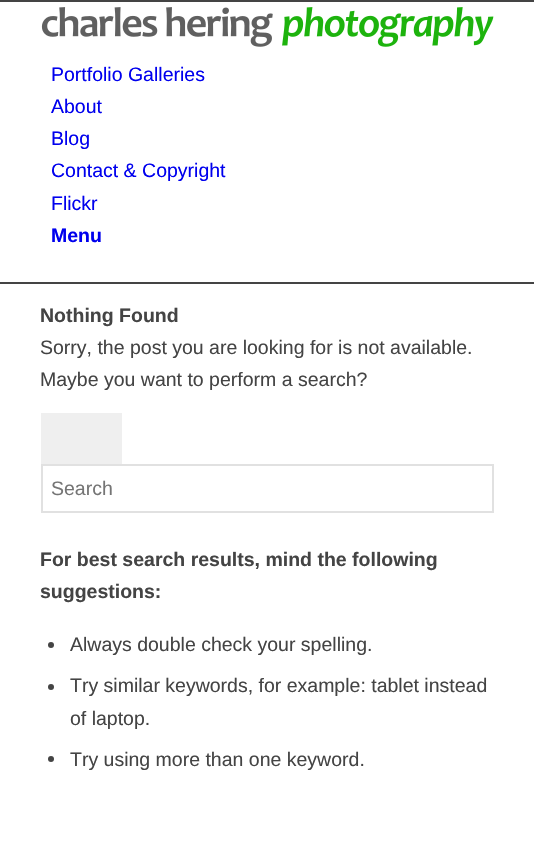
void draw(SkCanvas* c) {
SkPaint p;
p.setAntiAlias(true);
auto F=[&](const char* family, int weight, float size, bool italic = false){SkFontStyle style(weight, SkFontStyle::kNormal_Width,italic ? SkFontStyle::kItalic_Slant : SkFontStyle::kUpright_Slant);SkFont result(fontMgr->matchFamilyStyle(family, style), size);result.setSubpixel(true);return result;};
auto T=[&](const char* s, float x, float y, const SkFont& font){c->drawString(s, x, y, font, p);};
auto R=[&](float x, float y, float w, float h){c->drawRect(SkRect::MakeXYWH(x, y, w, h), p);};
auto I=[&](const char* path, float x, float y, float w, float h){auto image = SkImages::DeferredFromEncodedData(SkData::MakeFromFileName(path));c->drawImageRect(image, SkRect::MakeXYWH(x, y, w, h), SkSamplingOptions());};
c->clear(0xffffffff);
p.setColor(0xff444444);
R(0,0,534,2);
I("1.png",41,7,453,40);
auto f1 = F("Liberation Sans",400,19.5);
p.setColor(0xff0000ee);
T("Portfolio Galleries",51,81,f1);
T("About",51,113,f1);
T("Blog",51,145,f1);
T("Contact & Copyright",51,177,f1);
T("Flickr",51,210,f1);
auto f2 = F("Liberation Sans",700,19.5);
T("Menu",51,242,f2);
p.setColor(0xff444444);
R(0,282,534,2);
T("Nothing Found",40,322,f2);
T("Sorry, the post you are looking for is not available.",40,354,f1);
T("Maybe you want to perform a search?",40,386,f1);
p.setColor(0xffefefef);
R(41,413,81,51);
p.setStroke(true);
p.setStrokeWidth(2);
p.setColor(0xffe1e1e1);
c->drawRect(SkRect::MakeXYWH(42,465,451,47),p);
p.setStroke(false);
p.setColor(0xff757575);
T("Search",51,495,f1);
p.setColor(0xff444444);
T("For best search results, mind the following",40,566,f2);
T("suggestions:",40,598,f2);
c->drawCircle(51,645,3,p);
T("Always double check your spelling.",70,651,f1);
c->drawCircle(51,687,3,p);
T("Try similar keywords, for example: tablet instead",70,692,f1);
T("of laptop.",70,725,f1);
c->drawCircle(51,759,3,p);
T("Try using more than one keyword.",70,766,f1);
}
